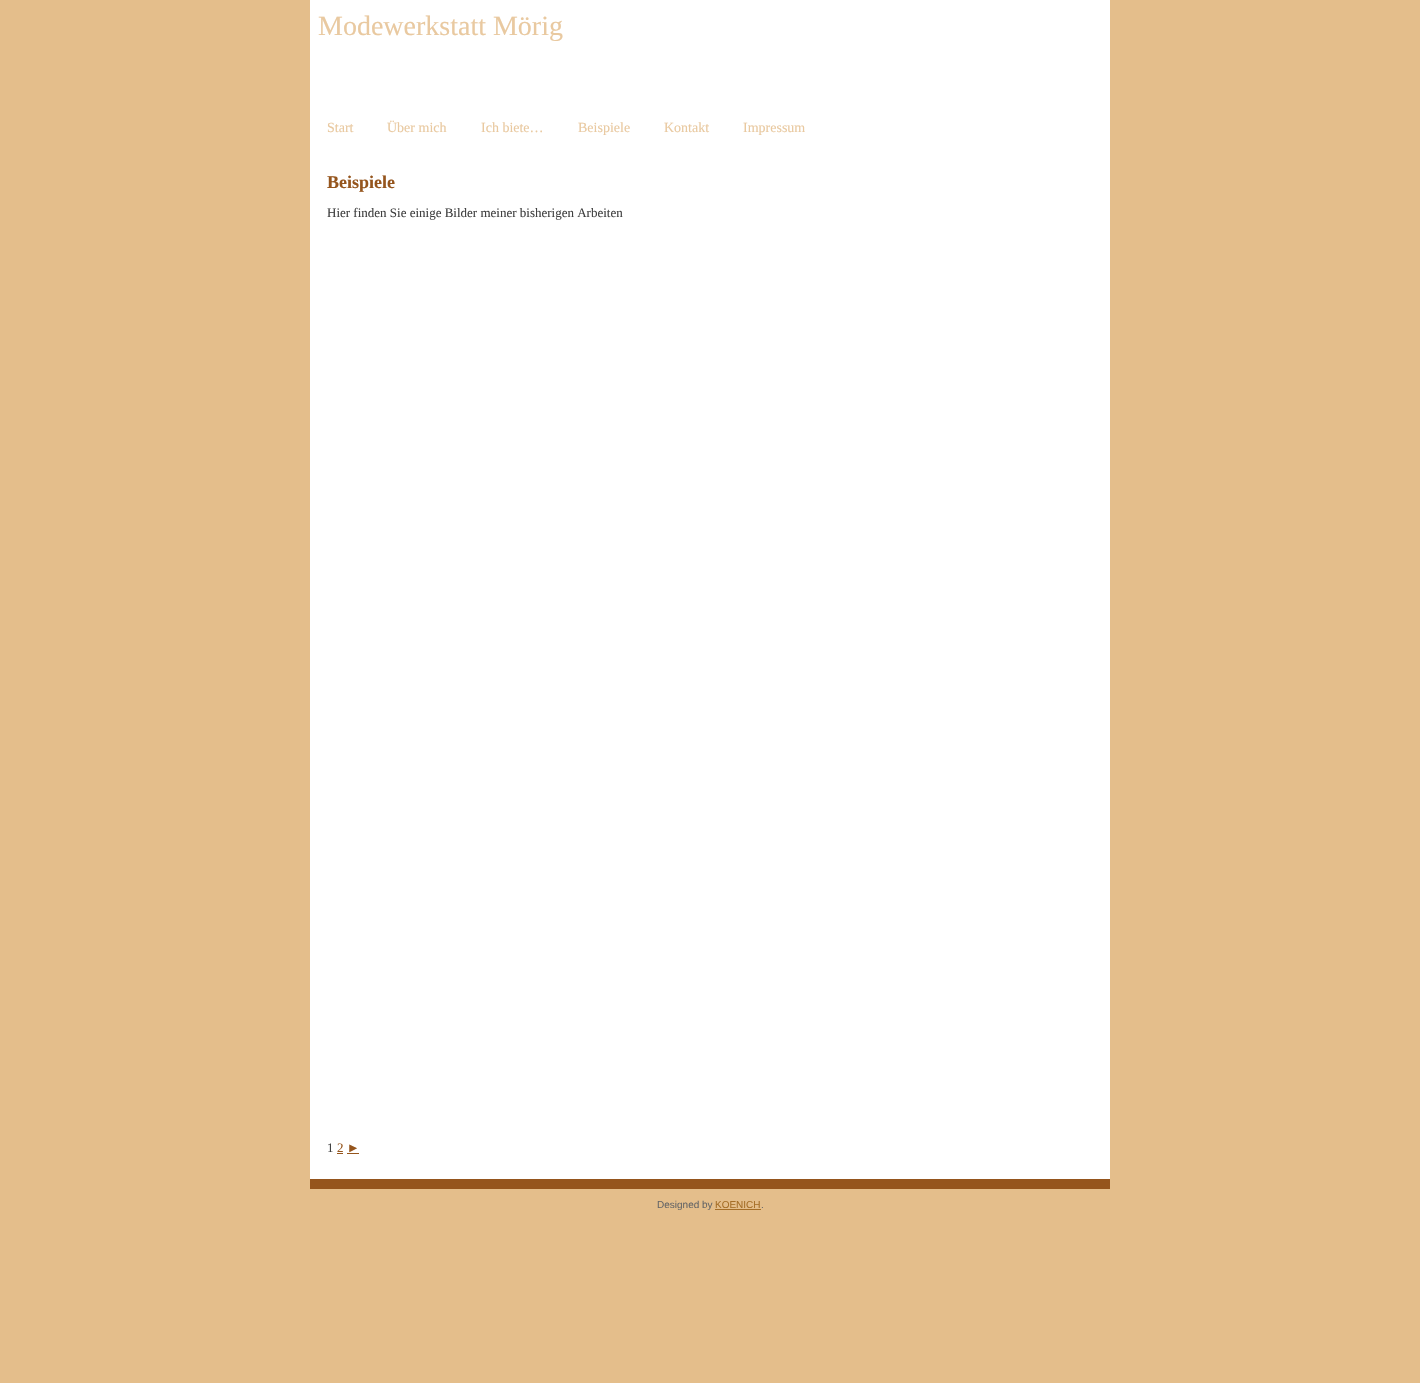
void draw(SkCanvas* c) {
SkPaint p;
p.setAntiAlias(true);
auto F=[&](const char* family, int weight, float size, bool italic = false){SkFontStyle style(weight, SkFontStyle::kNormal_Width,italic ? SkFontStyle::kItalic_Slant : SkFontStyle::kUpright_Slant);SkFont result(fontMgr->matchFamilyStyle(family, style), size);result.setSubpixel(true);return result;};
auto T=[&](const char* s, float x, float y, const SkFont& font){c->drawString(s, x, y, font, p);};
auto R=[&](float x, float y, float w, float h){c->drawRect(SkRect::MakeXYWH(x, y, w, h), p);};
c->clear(0xffe4be8b);
p.setColor(0xffffffff);
R(310,0,800,1179);
auto f1 = F("Liberation Serif",400,28);
p.setColor(0xffe9c9a0);
T("Modewerkstatt Mörig",318,35,f1);
auto f2 = F("Liberation Serif",400,14);
T("Start",327,132,f2);
T("Über mich",387,132,f2);
T("Ich biete…",481,132,f2);
T("Beispiele",578,132,f2);
T("Kontakt",664,132,f2);
T("Impressum",743,132,f2);
auto f3 = F("Liberation Serif",700,18);
p.setColor(0xff95551d);
T("Beispiele",327,188,f3);
auto f4 = F("Liberation Serif",400,13);
p.setColor(0xff404040);
T("Hier finden Sie einige Bilder meiner bisherigen Arbeiten",327,217,f4);
T("1",327,1152,f4);
p.setColor(0xff95551d);
T("2 ►",337,1152,f4);
R(337,1153,6,1);
R(347,1153,12,1);
R(310,1179,800,10);
auto f5 = F("Liberation Sans",400,10);
p.setColor(0xff666666);
T("Designed by",657,1208,f5);
p.setColor(0xffa56e27);
T("KOENICH",715,1208,f5);
R(715,1209,46,1);
p.setColor(0xff666666);
T(".",761,1208,f5);
}
